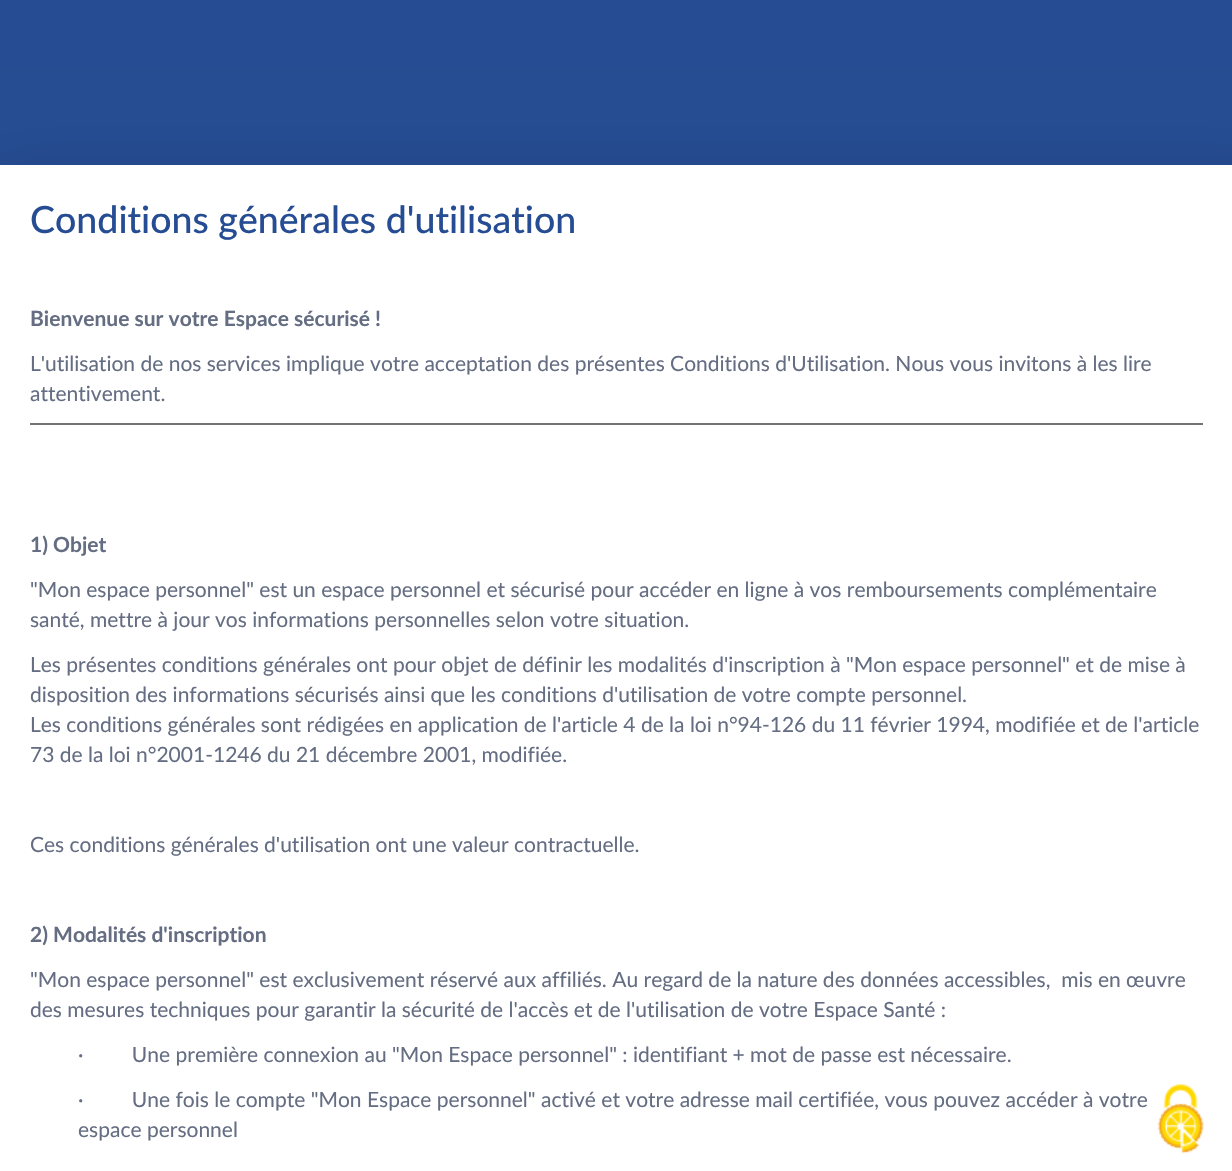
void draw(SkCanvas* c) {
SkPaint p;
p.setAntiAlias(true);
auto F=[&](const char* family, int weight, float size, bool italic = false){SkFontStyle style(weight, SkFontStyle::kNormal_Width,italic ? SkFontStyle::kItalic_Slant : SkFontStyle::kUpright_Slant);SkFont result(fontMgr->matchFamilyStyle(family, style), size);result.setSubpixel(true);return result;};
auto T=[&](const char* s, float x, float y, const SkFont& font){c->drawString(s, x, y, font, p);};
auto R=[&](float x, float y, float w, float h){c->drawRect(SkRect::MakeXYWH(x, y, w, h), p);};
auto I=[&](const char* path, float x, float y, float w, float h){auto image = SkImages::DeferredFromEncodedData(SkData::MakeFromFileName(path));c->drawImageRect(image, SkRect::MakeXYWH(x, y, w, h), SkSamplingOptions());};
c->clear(0xff264d93);
p.setColor(0x26000000);
p.setMaskFilter(SkMaskFilter::MakeBlur(kNormal_SkBlurStyle, 37.5));
c->drawRect(SkRect::MakeXYWH(-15,180,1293,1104),p);
p.setMaskFilter(nullptr);
p.setColor(0xffffffff);
R(0,165,1232,1006);
auto f1 = F("Lato",500,37.5);
p.setColor(0xff264d93);
T("Conditions générales d'utilisation",30,233,f1);
auto f2 = F("Lato",700,21);
p.setColor(0xff646d82);
T("Bienvenue sur votre Espace sécurisé !",30,326,f2);
auto f3 = F("Lato",400,21);
T("L'utilisation de nos services implique votre acceptation des présentes Conditions d'Utilisation. Nous vous invitons à les lire",30,371,f3);
T("attentivement.",30,401,f3);
p.setColor(0xff737373);
R(30,423,1173,2);
p.setColor(0xff646d82);
T("1) Objet",30,552,f2);
T("\"Mon espace personnel\" est un espace personnel et sécurisé pour accéder en ligne à vos remboursements complémentaire",30,597,f3);
T("santé, mettre à jour vos informations personnelles selon votre situation.",30,627,f3);
T("Les présentes conditions générales ont pour objet de définir les modalités d'inscription à \"Mon espace personnel\" et de mise à",30,672,f3);
T("disposition des informations sécurisés ainsi que les conditions d'utilisation de votre compte personnel.",30,702,f3);
T("Les conditions générales sont rédigées en application de l'article 4 de la loi n°94-126 du 11 février 1994, modifiée et de l'article",30,732,f3);
T("73 de la loi n°2001-1246 du 21 décembre 2001, modifiée.",30,762,f3);
T("Ces conditions générales d'utilisation ont une valeur contractuelle.",30,852,f3);
T("2) Modalités d'inscription",30,942,f2);
T("\"Mon espace personnel\" est exclusivement réservé aux affiliés. Au regard de la nature des données accessibles,  mis en œuvre",30,987,f3);
T("des mesures techniques pour garantir la sécurité de l'accès et de l'utilisation de votre Espace Santé :",30,1017,f3);
T("·         Une première connexion au \"Mon Espace personnel\" : identifiant + mot de passe est nécessaire.",78,1062,f3);
T("·         Une fois le compte \"Mon Espace personnel\" activé et votre adresse mail certifiée, vous pouvez accéder à votre",78,1107,f3);
T("espace personnel",78,1137,f3);
I("1.png",1157,1084,47,70);
}
